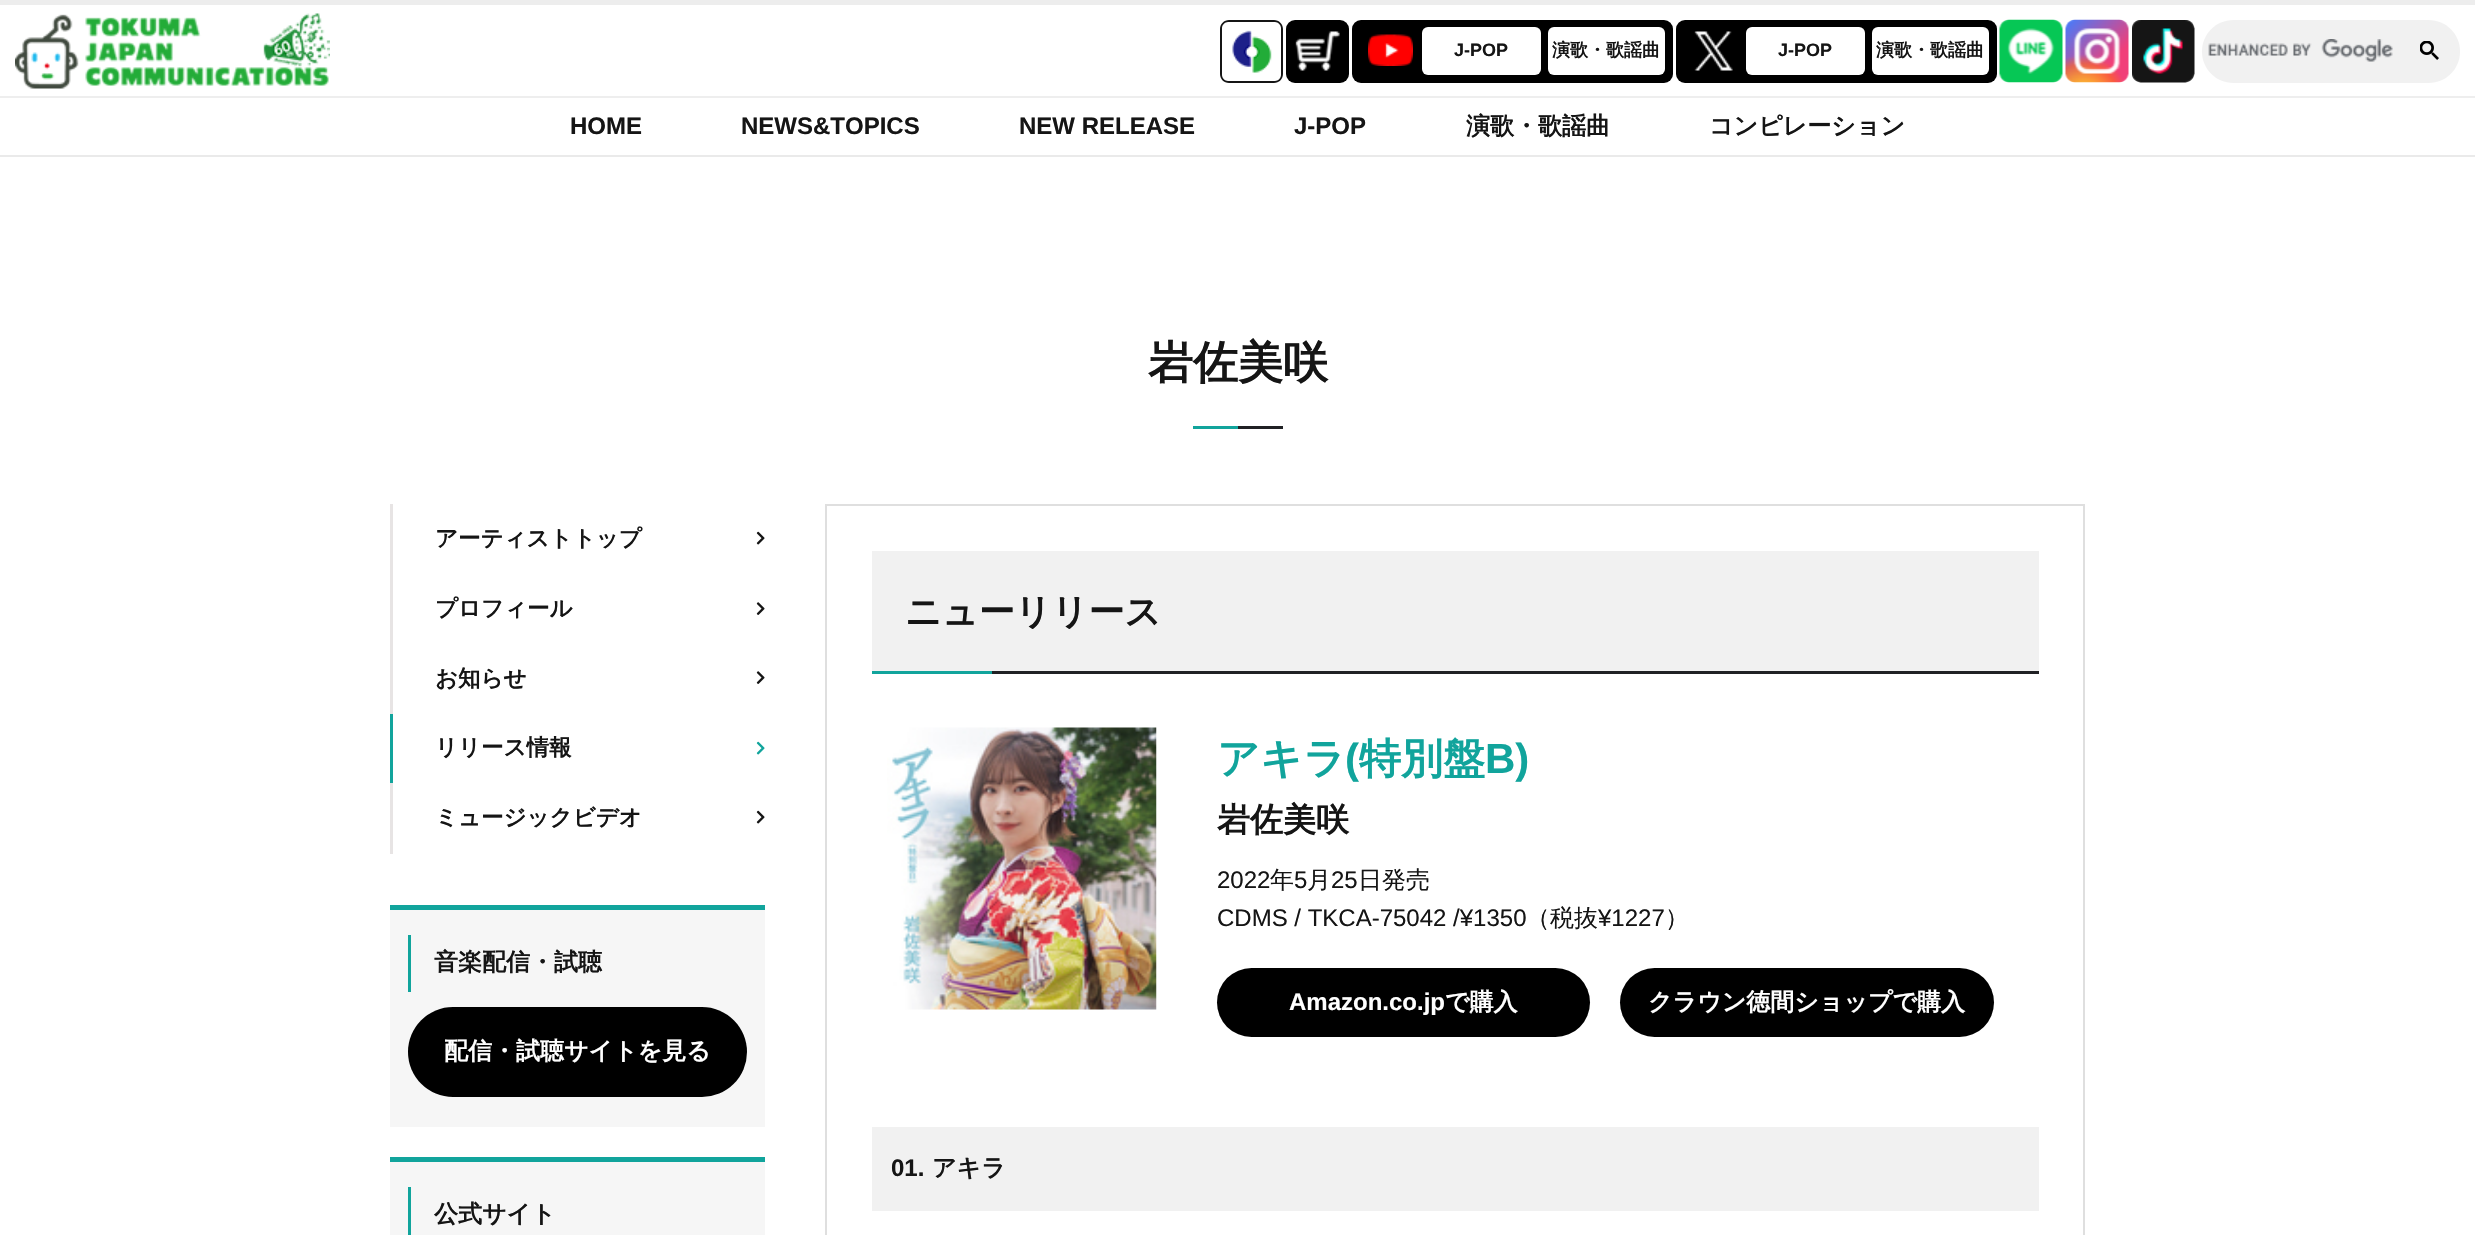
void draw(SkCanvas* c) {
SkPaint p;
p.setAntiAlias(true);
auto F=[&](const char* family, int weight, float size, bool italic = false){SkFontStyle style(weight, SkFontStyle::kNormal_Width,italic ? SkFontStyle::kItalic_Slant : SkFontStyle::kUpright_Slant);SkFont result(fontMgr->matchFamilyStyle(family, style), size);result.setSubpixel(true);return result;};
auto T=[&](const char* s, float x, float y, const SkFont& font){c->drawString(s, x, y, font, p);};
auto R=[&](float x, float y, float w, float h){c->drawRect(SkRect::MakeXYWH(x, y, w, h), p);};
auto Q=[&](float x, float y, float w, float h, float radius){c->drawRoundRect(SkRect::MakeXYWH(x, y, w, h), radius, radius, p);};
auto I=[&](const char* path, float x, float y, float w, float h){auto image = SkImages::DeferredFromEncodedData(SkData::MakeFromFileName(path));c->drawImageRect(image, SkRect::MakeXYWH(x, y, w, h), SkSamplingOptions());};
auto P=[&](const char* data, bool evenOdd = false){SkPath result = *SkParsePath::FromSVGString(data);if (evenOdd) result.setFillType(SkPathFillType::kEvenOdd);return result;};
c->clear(0xffffffff);
p.setColor(0xffededed);
R(0,0,2475,5);
p.setColor(0xffeaeaea);
R(0,155,2475,2);
I("1.png",15,13,315,76);
p.setColor(0xff151515);
c->drawPath(P("M1229 20c-5 0-9 4-9 9v45c0 5 4 9 9 9h45c5 0 9-4 9-9v-45c0-5-4-9-9-9zm-1 2c-3 0-6 3-6 6v47c0 3 3 6 6 6h47c3 0 6-3 6-6v-47c0-3-3-6-6-6z",true),p);
I("2.png",1232,30,40,43);
p.setColor(0xff000000);
Q(1286,20,63,63,9);
I("3.png",1295,31,45,40);
Q(1352,20,321,63,9);
I("4.png",1368,34,45,32);
p.setColor(0xffffffff);
Q(1422,27,119,48,6);
auto f1 = F("Liberation Sans",700,18);
p.setColor(0xff151515);
T("J-POP",1454,56,f1);
p.setColor(0xffffffff);
Q(1548,27,117,48,6);
auto f2 = F("WenQuanYi Zen Hei",700,18);
p.setColor(0xff151515);
T("演歌・歌謡曲",1552,56,f2);
p.setColor(0xff000000);
Q(1676,20,321,63,9);
I("5.png",1694,31,39,40);
p.setColor(0xffffffff);
Q(1746,27,119,48,6);
p.setColor(0xff151515);
T("J-POP",1778,56,f1);
p.setColor(0xffffffff);
Q(1872,27,117,48,6);
p.setColor(0xff151515);
T("演歌・歌謡曲",1876,56,f2);
I("6.png",1999,19,64,64);
I("7.png",2065,19,64,64);
I("8.png",2132,20,63,63);
p.setColor(0xfff1f1f1);
c->drawPath(P("M2233.5 20h163.5v63h-163.5c-17.5 0-31.5-14-31.5-31.5c0-17.5 14-31.5 31.5-31.5z"),p);
I("9.png",2208,39,185,23);
c->drawPath(P("M2397 20h31.5c17.5 0 31.5 14 31.5 31.5c0 17.5-14 31.5-31.5 31.5h-31.5z"),p);
I("10.png",2420,41,19,19);
p.setColor(0xffeeeeee);
R(0,96,2475,2);
auto f3 = F("Liberation Sans",700,24);
p.setColor(0xff151515);
T("HOME",570,134,f3);
T("NEWS&TOPICS",741,134,f3);
T("NEW RELEASE",1019,134,f3);
T("J-POP",1294,134,f3);
auto f4 = F("WenQuanYi Zen Hei",700,24);
T("演歌・歌謡曲",1466,134,f4);
T("コンピレーション",1709,134,f4);
auto f5 = F("WenQuanYi Zen Hei",700,45);
T("岩佐美咲",1148,378,f5);
p.setColor(0xff11a49c);
R(1193,426,45,3);
p.setColor(0xff202124);
R(1238,426,45,3);
p.setColor(0xffe7e4e4);
R(390,504,3,210);
auto f6 = F("WenQuanYi Zen Hei",700,22.5);
p.setColor(0xff151515);
T("アーティストトップ",435,546,f6);
I("11.png",756,531,9,14);
T("プロフィール",435,616,f6);
I("12.png",756,602,9,13);
T("お知らせ",435,686,f6);
I("12.png",756,671,9,13);
p.setColor(0xff11a49c);
R(390,714,3,69);
p.setColor(0xff151515);
T("リリース情報",435,755,f6);
I("13.png",756,741,9,14);
p.setColor(0xffe7e4e4);
R(390,783,3,71);
p.setColor(0xff151515);
T("ミュージックビデオ",435,825,f6);
I("11.png",756,810,9,14);
p.setColor(0xfff6f6f6);
R(390,910,375,217);
p.setColor(0xff11a49c);
R(390,905,375,5);
R(408,935,3,57);
p.setColor(0xff151515);
T("音楽配信・試聴",434,970,f4);
p.setColor(0xff000000);
Q(408,1007,339,90,45);
p.setColor(0xffffffff);
T("配信・試聴サイトを見る",444,1059,f4);
p.setColor(0xfff6f6f6);
R(390,1162,375,73);
p.setColor(0xff11a49c);
R(390,1157,375,5);
R(408,1187,3,48);
p.setColor(0xff151515);
T("公式サイト",434,1222,f4);
p.setStroke(true);
p.setStrokeWidth(2);
p.setColor(0xffdfdfdf);
c->drawRect(SkRect::MakeXYWH(826,505,1258,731),p);
p.setStroke(false);
p.setColor(0xfff1f1f1);
R(872,551,1167,120);
auto f7 = F("WenQuanYi Zen Hei",700,36);
p.setColor(0xff151515);
T("ニューリリース",905,624,f7);
p.setColor(0xff11a49c);
R(872,671,120,3);
p.setColor(0xff202124);
R(992,671,1047,3);
I("14.png",887,727,270,283);
auto f8 = F("WenQuanYi Zen Hei",700,42);
p.setColor(0xff11a49c);
T("アキラ",1217,773,f8);
auto f9 = F("Liberation Sans",700,42);
T("(",1345,773,f9);
T("特別盤",1359,773,f8);
T("B)",1485,773,f9);
auto f10 = F("WenQuanYi Zen Hei",700,33);
p.setColor(0xff151515);
T("岩佐美咲",1217,831,f10);
auto f11 = F("Liberation Sans",400,24);
T("2022",1217,888,f11);
auto f12 = F("WenQuanYi Zen Hei",500,24);
T("年",1270,888,f12);
T("5",1294,888,f11);
T("月",1307,888,f12);
T("25",1331,888,f11);
T("日発売",1358,888,f12);
T("CDMS / TKCA-75042 /¥1350",1217,926,f11);
T("（税抜",1526,926,f12);
T("¥1227",1598,926,f11);
T("）",1665,926,f12);
p.setColor(0xff000000);
Q(1217,968,373,69,34.5);
p.setColor(0xffffffff);
T("Amazon.co.jp",1289,1010,f3);
T("で購入",1445,1010,f4);
p.setColor(0xff000000);
Q(1620,968,374,69,34.5);
p.setColor(0xffffffff);
T("クラウン徳間ショップで購入",1648,1010,f4);
p.setColor(0xfff1f1f1);
R(872,1127,1167,84);
p.setColor(0xff151515);
T("01.",891,1176,f3);
T("アキラ",932,1176,f4);
}
